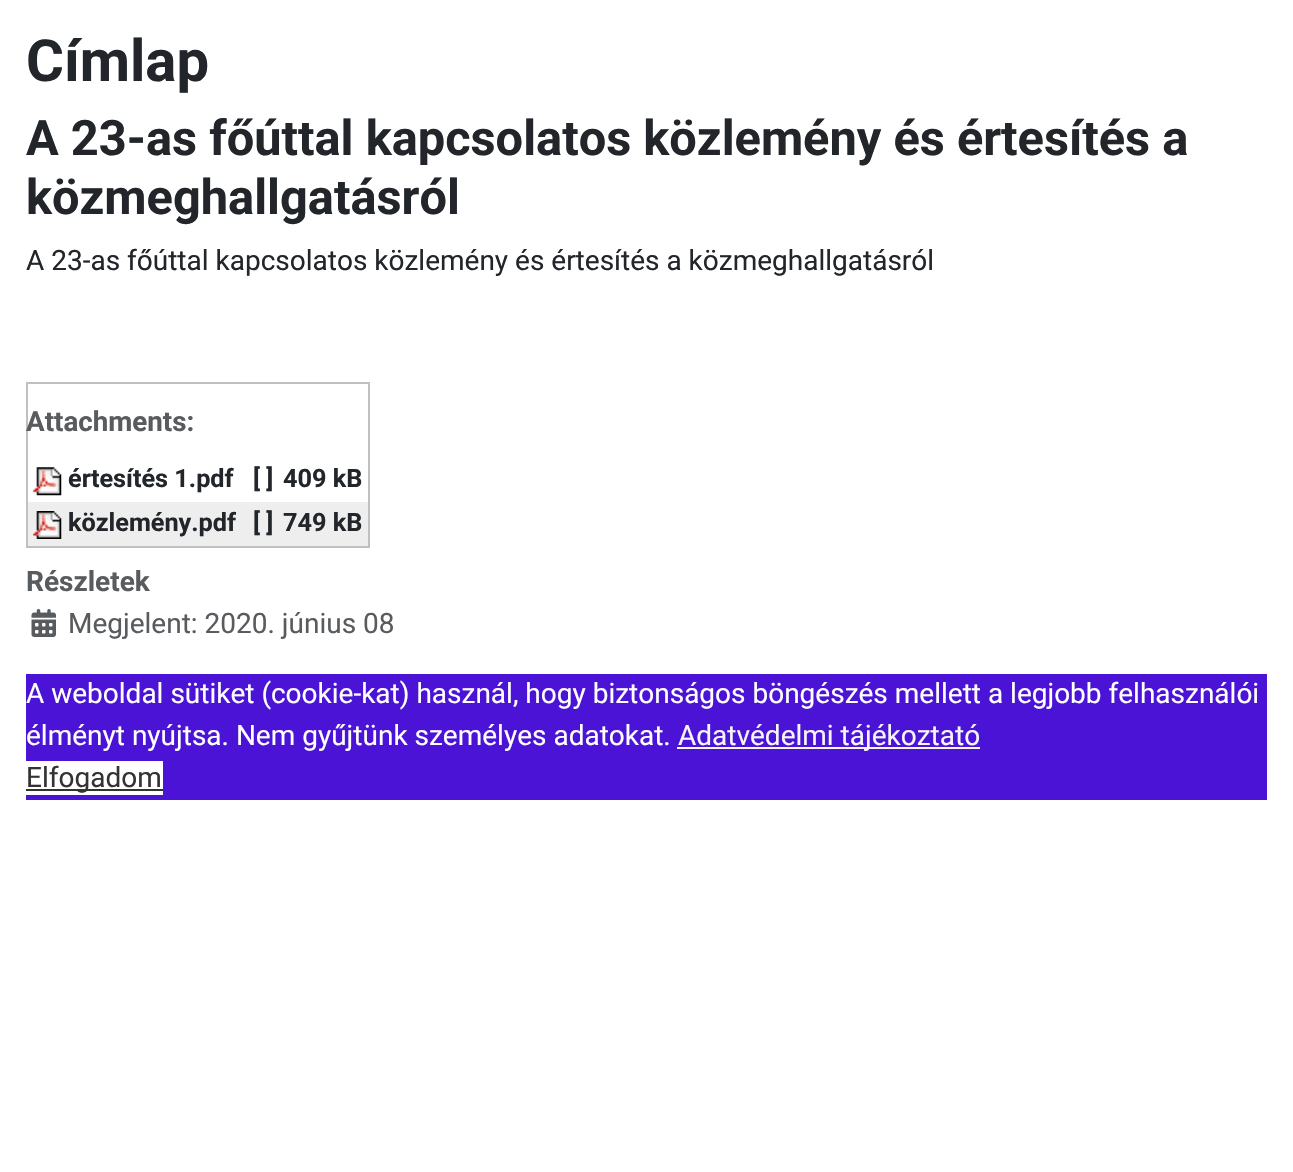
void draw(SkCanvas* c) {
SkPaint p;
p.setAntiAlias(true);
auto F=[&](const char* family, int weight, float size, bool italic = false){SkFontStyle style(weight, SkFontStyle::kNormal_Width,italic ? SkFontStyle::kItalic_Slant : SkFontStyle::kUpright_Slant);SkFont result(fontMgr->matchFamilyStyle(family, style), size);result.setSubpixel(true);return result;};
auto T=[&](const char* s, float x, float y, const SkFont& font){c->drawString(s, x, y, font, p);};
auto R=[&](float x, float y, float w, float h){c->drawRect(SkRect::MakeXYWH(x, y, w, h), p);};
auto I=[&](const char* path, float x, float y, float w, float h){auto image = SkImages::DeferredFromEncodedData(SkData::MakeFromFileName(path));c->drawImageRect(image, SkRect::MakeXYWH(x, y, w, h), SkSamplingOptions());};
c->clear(0xffffffff);
auto f1 = F("Roboto",700,58);
p.setColor(0xff22262a);
T("Címlap",26,81,f1);
auto f2 = F("Roboto",700,48.75);
T("A 23-as főúttal kapcsolatos közlemény és értesítés a",26,155,f2);
T("közmeghallgatásról",26,214,f2);
auto f3 = F("Roboto",400,28);
T("A 23-as főúttal kapcsolatos közlemény és értesítés a közmeghallgatásról",26,270,f3);
p.setColor(0xffc0c0c0);
R(26,382,343,2);
R(368,382,2,166);
R(26,546,343,2);
R(26,382,2,166);
auto f4 = F("Roboto",700,27.75);
p.setColor(0xff595c5f);
T("Attachments:",26,431,f4);
I("1.png",33,467,29,29);
auto f5 = F("Roboto",700,25.25);
p.setColor(0xff22262a);
T("értesítés 1.pdf",68,487,f5);
T("[ ]",253,487,f5);
T("409 kB",283,487,f5);
p.setColor(0xffeeeeee);
R(28,502,340,44);
I("2.png",33,511,29,28);
p.setColor(0xff22262a);
T("közlemény.pdf",68,531,f5);
T("[ ]",253,531,f5);
T("749 kB",283,531,f5);
auto f6 = F("Roboto",700,28);
p.setColor(0xff595c5f);
T("Részletek",26,591,f6);
I("3.png",31,609,25,28);
T("Megjelent: 2020. június 08",68,633,f3);
p.setColor(0xff4a13d6);
R(26,674,1241,126);
p.setColor(0xffffffff);
T("A weboldal sütiket (cookie-kat) használ, hogy biztonságos böngészés mellett a legjobb felhasználói",26,703,f3);
T("élményt nyújtsa. Nem gyűjtünk személyes adatokat.",26,745,f3);
p.setColor(0xfff5f5f5);
R(677,747,303,2);
T("Adatvédelmi tájékoztató",678,745,f3);
p.setColor(0xffffffff);
R(26,761,137,34);
p.setColor(0xff333333);
R(26,789,137,2);
T("Elfogadom",26,787,f3);
}
